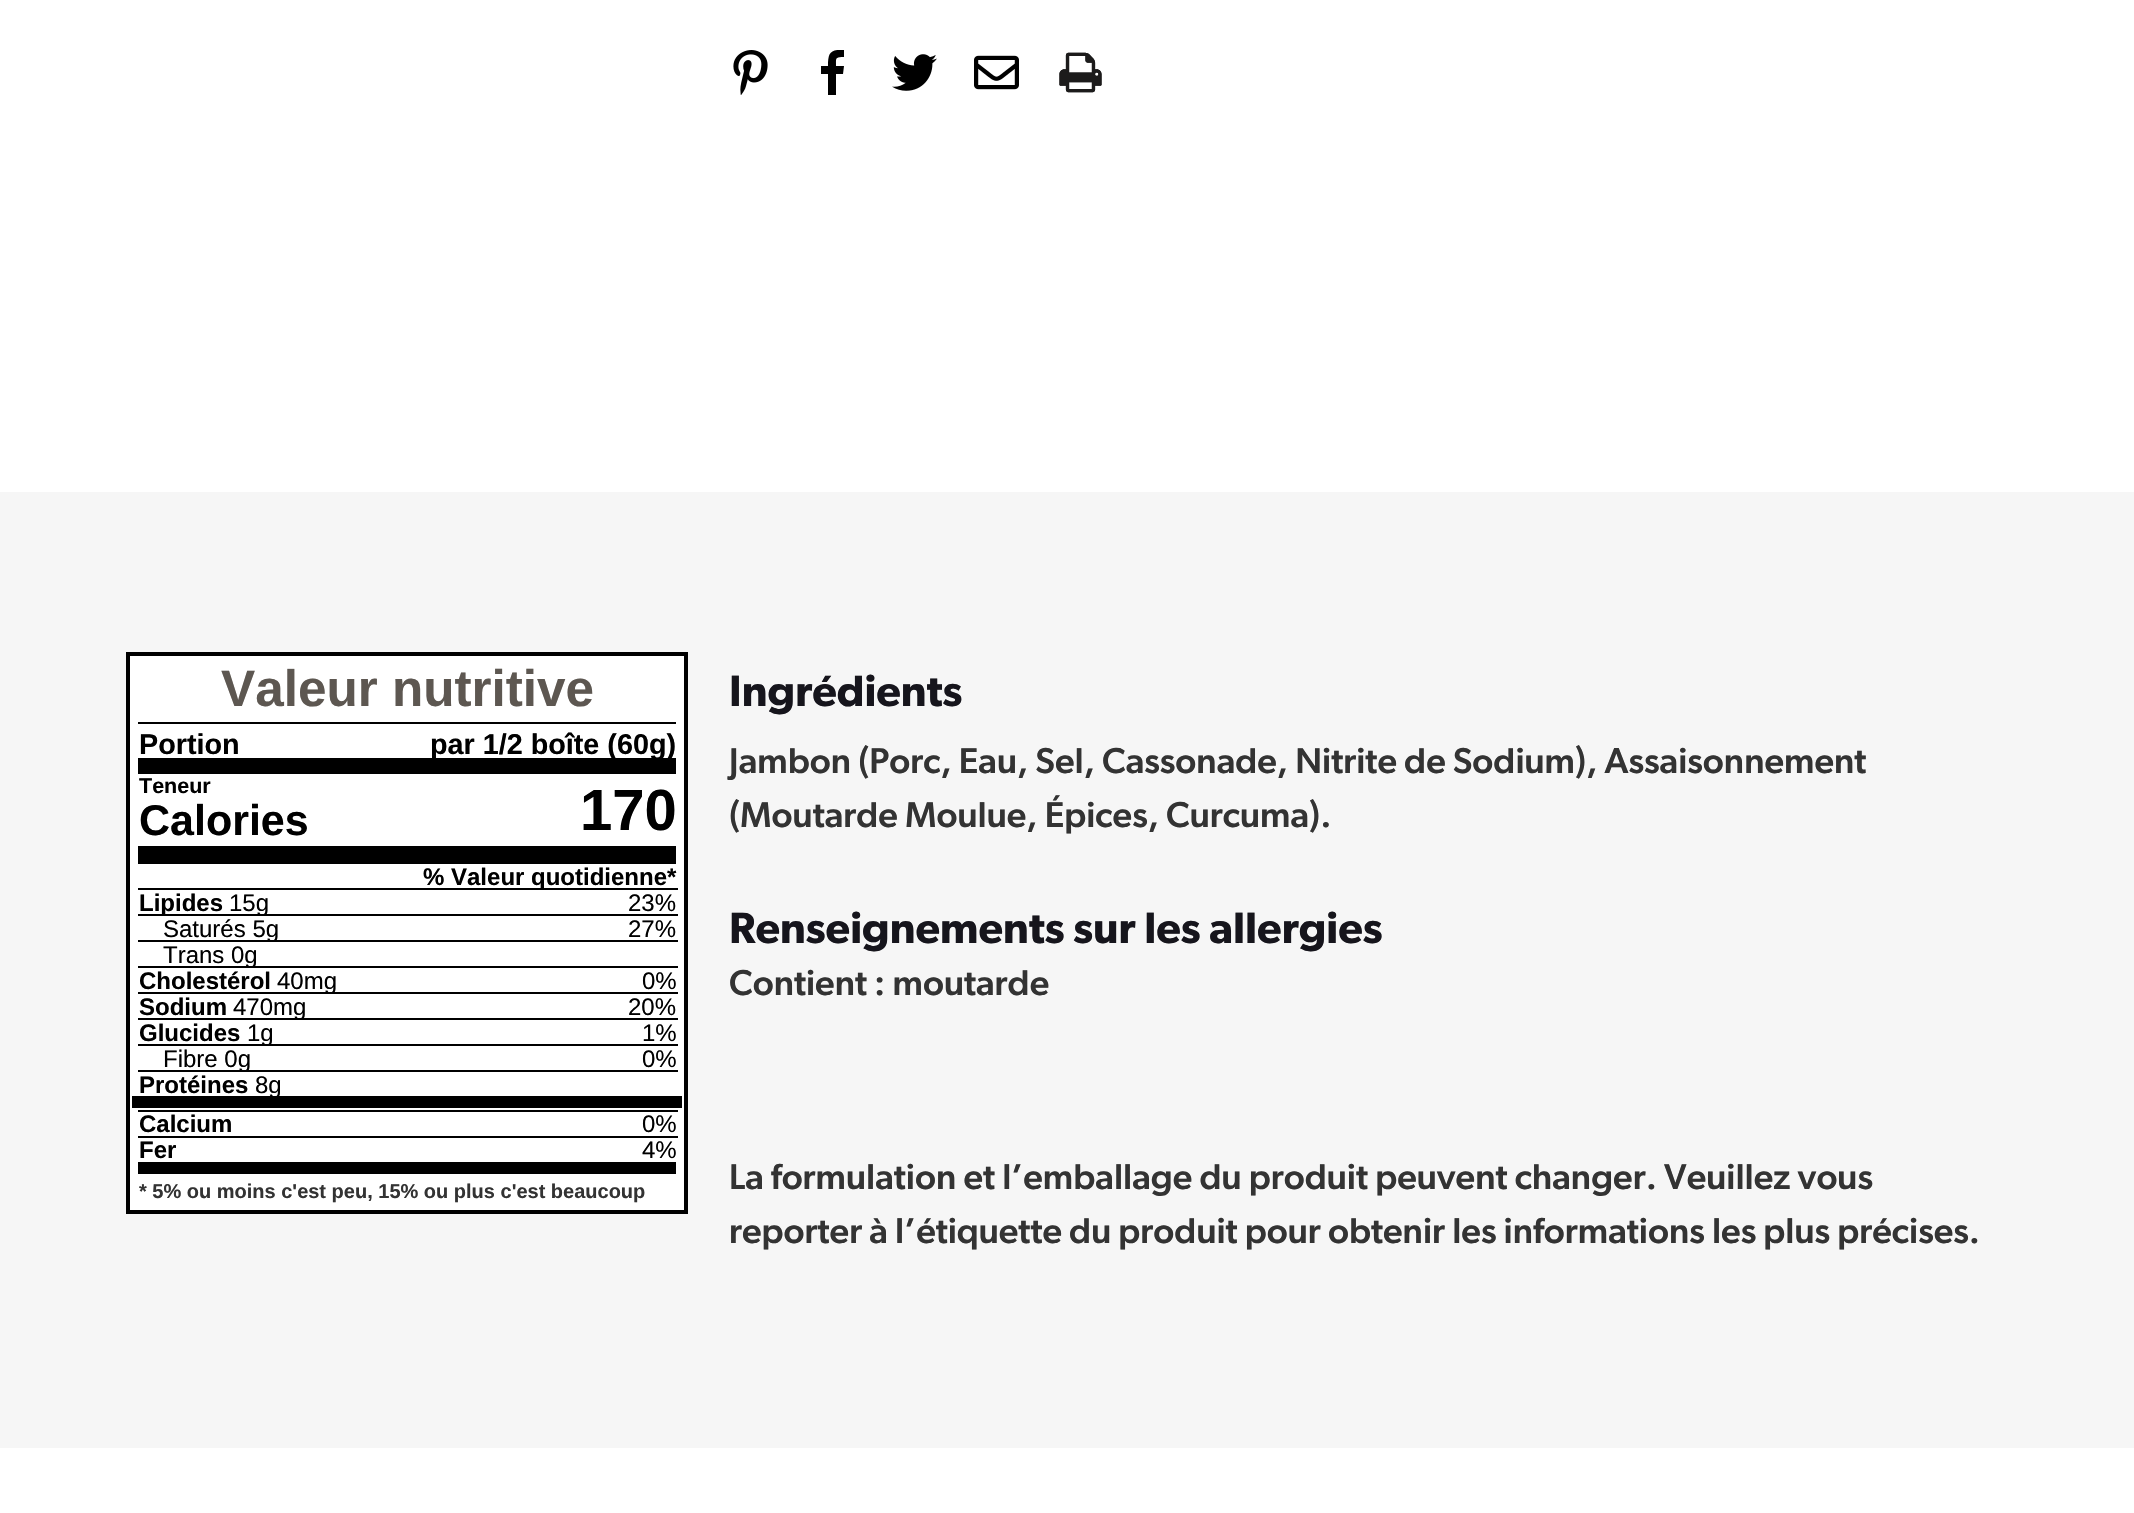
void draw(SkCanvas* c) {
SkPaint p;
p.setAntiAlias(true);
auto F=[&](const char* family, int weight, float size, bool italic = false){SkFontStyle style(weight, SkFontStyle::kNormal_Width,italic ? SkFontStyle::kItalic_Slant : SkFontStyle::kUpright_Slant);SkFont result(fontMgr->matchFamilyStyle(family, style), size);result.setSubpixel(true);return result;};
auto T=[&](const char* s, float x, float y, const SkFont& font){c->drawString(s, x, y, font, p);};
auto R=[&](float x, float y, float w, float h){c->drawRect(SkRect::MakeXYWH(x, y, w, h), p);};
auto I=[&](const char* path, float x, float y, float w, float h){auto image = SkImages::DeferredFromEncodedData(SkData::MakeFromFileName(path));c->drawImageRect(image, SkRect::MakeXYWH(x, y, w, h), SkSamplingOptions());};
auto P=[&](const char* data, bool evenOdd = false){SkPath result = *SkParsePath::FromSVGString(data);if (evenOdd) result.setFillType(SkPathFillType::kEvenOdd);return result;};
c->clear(0xffffffff);
I("1.png",733,50,35,45);
c->save();
c->clipRect(SkRect::MakeXYWH(810,50,46,46));
p.setColor(0xff000000);
c->drawPath(P("M844 57c-9 0-8 1-8 9h8l-1 8h-7v21h-8v-21h-7v-8h7c0-13 2-17 16-16z"),p);
c->restore();
I("2.png",892,54,45,37);
I("3.png",974,55,45,35);
I("4.png",1059,52,43,41);
p.setColor(0xfff6f6f6);
R(0,492,2134,956);
p.setColor(0xffffffff);
c->drawRect(SkRect::MakeXYWH(128,654,558,558),p);
p.setStroke(true);
p.setStrokeWidth(4);
p.setColor(0xff000000);
c->drawRect(SkRect::MakeXYWH(128,654,558,558),p);
p.setStroke(false);
R(138,722,538,2);
auto f1 = F("Liberation Sans",700,51.25);
p.setColor(0xff5d5751);
T("Valeur nutritive",221,706,f1);
auto f2 = F("Liberation Sans",700,28.75);
p.setColor(0xff000000);
T("Portion",139,754,f2);
R(138,758,538,16);
T("par 1/2 boîte (60g)",430,754,f2);
R(138,846,538,18);
auto f3 = F("Liberation Sans",700,21.5);
T("Teneur",139,793,f3);
auto f4 = F("Liberation Sans",700,58);
T("170",580,830,f4);
auto f5 = F("Liberation Sans",700,43);
T("Calories",139,835,f5);
R(138,1162,538,12);
R(138,888,540,2);
auto f6 = F("Liberation Sans",700,24);
T("% Valeur quotidienne*",423,885,f6);
R(138,914,540,2);
T("Lipides",139,911,f6);
auto f7 = F("Liberation Sans",400,24);
T("15g",229,911,f7);
T("23%",628,911,f7);
R(138,940,540,2);
T("Saturés 5g",163,937,f7);
T("27%",628,937,f7);
R(138,966,540,2);
T("Trans 0g",163,963,f7);
T("Cholestérol",139,989,f6);
R(138,992,540,2);
T("40mg",277,989,f7);
T("0%",642,989,f7);
T("Sodium",139,1015,f6);
R(138,1018,540,2);
T("470mg",233,1015,f7);
T("20%",628,1015,f7);
T("Glucides",139,1041,f6);
R(138,1044,540,2);
T("1g",247,1041,f7);
T("1%",642,1041,f7);
R(138,1070,540,2);
T("Fibre 0g",163,1067,f7);
T("0%",642,1067,f7);
T("Protéines",139,1093,f6);
R(132,1096,550,12);
T("8g",255,1093,f7);
R(138,1110,540,2);
T("Calcium",139,1132,f6);
T("0%",642,1132,f7);
R(138,1136,540,2);
T("Fer",139,1158,f6);
T("4%",642,1158,f7);
auto f8 = F("Liberation Sans",700,20);
p.setColor(0xff333333);
T("* 5% ou moins c'est peu, 15% ou plus c'est beaucoup",139,1198,f8);
auto f9 = F("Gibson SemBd",600,44);
p.setColor(0xff16151c);
T("Ingrédients",729,706,f9);
auto f10 = F("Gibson",500,36);
p.setColor(0xff333333);
T("Jambon (Porc, Eau, Sel, Cassonade, Nitrite de Sodium), Assaisonnement",729,773,f10);
T("(Moutarde Moulue, Épices, Curcuma).",729,827,f10);
p.setColor(0xff16151c);
T("Renseignements sur les allergies",729,943,f9);
p.setColor(0xff333333);
T("Contient : moutarde",729,995,f10);
T("La formulation et l’emballage du produit peuvent changer. Veuillez vous",729,1189,f10);
T("reporter à l’étiquette du produit pour obtenir les informations les plus précises.",729,1243,f10);
}
